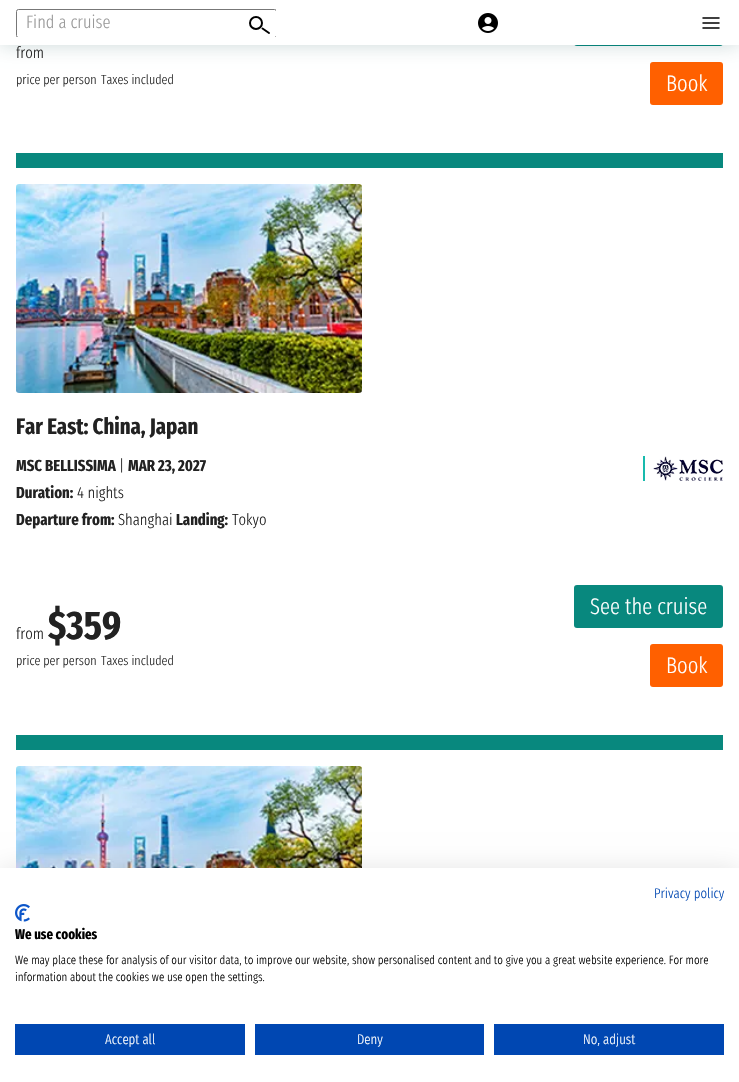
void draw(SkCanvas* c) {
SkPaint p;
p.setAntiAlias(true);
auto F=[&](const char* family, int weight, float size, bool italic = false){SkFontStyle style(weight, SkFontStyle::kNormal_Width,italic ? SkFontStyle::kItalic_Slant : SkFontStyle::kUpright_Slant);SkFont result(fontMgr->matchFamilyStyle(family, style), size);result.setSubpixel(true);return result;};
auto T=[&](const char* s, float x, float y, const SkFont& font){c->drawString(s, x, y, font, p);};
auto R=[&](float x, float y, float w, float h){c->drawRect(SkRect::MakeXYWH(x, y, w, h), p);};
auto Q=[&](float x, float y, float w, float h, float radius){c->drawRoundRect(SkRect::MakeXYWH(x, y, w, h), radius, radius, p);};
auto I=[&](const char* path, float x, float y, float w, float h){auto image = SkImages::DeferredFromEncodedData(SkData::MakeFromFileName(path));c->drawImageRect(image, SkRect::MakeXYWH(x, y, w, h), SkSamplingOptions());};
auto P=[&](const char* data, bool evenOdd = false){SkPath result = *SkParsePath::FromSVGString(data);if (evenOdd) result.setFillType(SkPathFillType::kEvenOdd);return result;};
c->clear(0xffffffff);
p.setColor(0xff08887e);
Q(574,3,149,43,3);
p.setColor(0xffff6000);
Q(650,62,73,43,3);
p.setColor(0x33003c3c);
p.setMaskFilter(SkMaskFilter::MakeBlur(kNormal_SkBlurStyle, 10));
c->drawRect(SkRect::MakeXYWH(0,0,739,45),p);
p.setMaskFilter(nullptr);
p.setColor(0xffffffff);
R(0,0,739,45);
c->save();
c->clipRect(SkRect::MakeXYWH(16,9,260,28));
p.setStroke(true);
p.setStrokeWidth(1);
p.setColor(0xff777777);
c->drawRoundRect(SkRect::MakeXYWH(16.5,9.5,260,28),2,2,p);
c->restore();
p.setStrokeWidth(2);
p.setColor(0xff000000);
c->drawCircle(256,23,6,p);
p.setStrokeCap(SkPaint::kRound_Cap);
c->drawPath(P("M262.5 28.5l6.5 4.5"),p);
auto f1 = F("Fira Sans Extra Condensed",300,18);
p.setStroke(false);
p.setColor(0xff999999);
T("Find a cruise",26,28,f1);
I("1.png",478,13,20,20);
p.setStroke(true);
p.setStrokeWidth(1.5);
p.setStrokeJoin(SkPaint::kRound_Join);
p.setColor(0xff000000);
c->drawPath(P("M703 18h16m-16 5h16m-16 5h16"),p);
p.setStroke(false);
p.setColor(0xff08887e);
R(16,153,707,15);
auto f2 = F("Fira Sans Extra Condensed",300,16);
p.setColor(0xff222222);
T("from",16,58,f2);
auto f3 = F("Fira Sans Extra Condensed",300,13.25);
T("price per person",16,84,f3);
T("Taxes included",101,84,f3);
auto f4 = F("Fira Sans Extra Condensed",300,22.5);
p.setColor(0xffffffff);
T("Book",666,91,f4);
p.setColor(0xff08887e);
R(16,735,707,15);
I("2.png",16,184,346,209);
auto f5 = F("Fira Sans Extra Condensed",700,22.5);
p.setColor(0xff222222);
T("Far East: China, Japan",16,434,f5);
auto f6 = F("Fira Sans Extra Condensed",700,16);
T("MSC BELLISSIMA",16,471,f6);
T("|",119,471,f2);
T("MAR 23, 2027",128,471,f6);
p.setColor(0xff18baad);
R(643,456,2,25);
I("3.png",653,456,70,25);
p.setColor(0xff222222);
T("Duration:",16,498,f6);
T("4 nights",77,498,f2);
T("Departure from:",16,525,f6);
T("Shanghai",118,525,f2);
T("Landing:",176,525,f6);
T("Tokyo",232,525,f2);
T("from",16,639,f2);
auto f7 = F("Fira Sans Extra Condensed",700,40);
T("$359",48,639,f7);
T("price per person",16,665,f3);
T("Taxes included",101,665,f3);
p.setColor(0xff08887e);
Q(574,585,149,43,3);
p.setColor(0xffffffff);
T("See the cruise",590,614,f4);
p.setColor(0xffff6000);
Q(650,644,73,43,3);
p.setColor(0xffffffff);
T("Book",666,673,f4);
I("4.png",16,766,346,102);
p.setColor(0x1a000000);
p.setMaskFilter(SkMaskFilter::MakeBlur(kNormal_SkBlurStyle, 12));
c->drawRect(SkRect::MakeXYWH(0,868,739,214),p);
p.setMaskFilter(nullptr);
p.setColor(0xffffffff);
R(0,868,739,214);
auto f8 = F("Fira Sans Extra Condensed",300,14);
p.setColor(0xff0047b2);
T("Privacy policy",654,898,f8);
I("5.png",15,904,15,18);
auto f9 = F("Fira Sans Extra Condensed",700,14);
p.setColor(0xff000000);
T("We use cookies",15,939,f9);
auto f10 = F("Fira Sans Extra Condensed",300,12);
T("We may place these for analysis of our visitor data, to improve our website, show personalised content and to give you a great website experience. For more",15,964,f10);
T("information about the cookies we use open the settings.",15,981,f10);
p.setColor(0xff0047b2);
R(15,1024,230,31);
p.setColor(0xffffffff);
T("Accept all",105,1044,f8);
p.setColor(0xff0047b2);
R(255,1024,229,31);
p.setColor(0xffffffff);
T("Deny",357,1044,f8);
p.setColor(0xff0047b2);
R(494,1024,230,31);
p.setColor(0xffffffff);
T("No, adjust",583,1044,f8);
}
